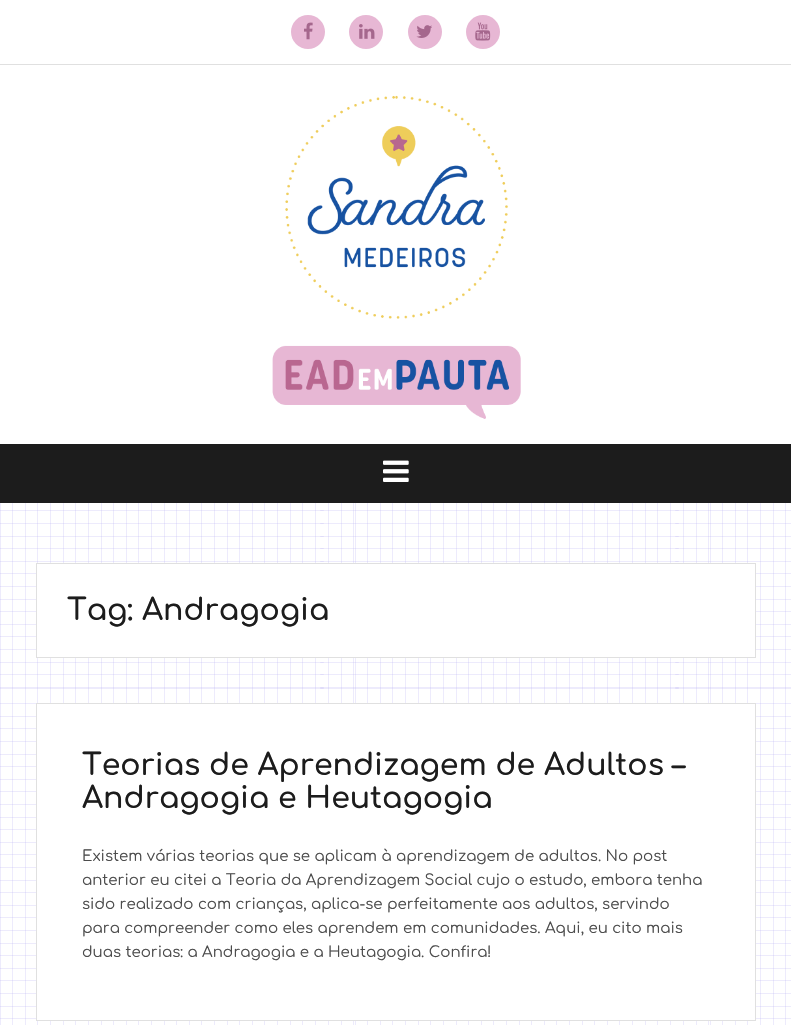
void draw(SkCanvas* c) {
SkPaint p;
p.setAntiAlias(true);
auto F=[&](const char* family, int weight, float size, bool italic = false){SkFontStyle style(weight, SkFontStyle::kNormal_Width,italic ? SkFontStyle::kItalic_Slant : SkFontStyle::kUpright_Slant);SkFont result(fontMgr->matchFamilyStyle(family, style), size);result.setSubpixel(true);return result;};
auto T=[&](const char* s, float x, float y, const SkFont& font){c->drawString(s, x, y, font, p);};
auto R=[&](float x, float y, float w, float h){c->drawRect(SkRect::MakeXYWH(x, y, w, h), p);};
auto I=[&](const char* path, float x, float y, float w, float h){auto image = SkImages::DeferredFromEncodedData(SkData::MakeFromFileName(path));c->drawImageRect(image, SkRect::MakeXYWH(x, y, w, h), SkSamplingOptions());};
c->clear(0xffffffff);
I("1.png",0,503,791,522);
p.setColor(0xffe0e0e0);
R(0,64,791,1);
p.setColor(0xffe7b7d4);
c->drawCircle(308,32,17,p);
I("2.png",304,22,9,18);
c->drawCircle(366,32,17,p);
I("3.png",359,24,16,15);
c->drawCircle(425,32,17,p);
I("4.png",416,25,16,13);
c->drawCircle(483,32,17,p);
I("5.png",475,22,16,19);
I("6.png",272,95,249,324);
p.setColor(0xff1c1c1c);
R(0,444,791,59);
I("7.png",383,460,26,22);
p.setColor(0xffffffff);
c->drawRect(SkRect::MakeXYWH(36.5,563.5,719,94),p);
p.setStroke(true);
p.setStrokeWidth(1);
p.setColor(0xffe0e0e0);
c->drawRect(SkRect::MakeXYWH(36.5,563.5,719,94),p);
auto f1 = F("Comfortaa",600,30);
p.setStroke(false);
p.setColor(0xff1c1c1c);
T("Tag: Andragogia",67,620,f1);
p.setColor(0xffffffff);
c->drawRect(SkRect::MakeXYWH(36.5,703.5,719,317),p);
p.setStroke(true);
p.setColor(0xffe0e0e0);
c->drawRect(SkRect::MakeXYWH(36.5,703.5,719,317),p);
p.setStroke(false);
p.setColor(0xff1c1c1c);
T("Teorias de Aprendizagem de Adultos –",82,775,f1);
T("Andragogia e Heutagogia",82,808,f1);
auto f2 = F("Comfortaa",400,15);
p.setColor(0xff4c4c4c);
T("Existem várias teorias que se aplicam à aprendizagem de adultos. No post",82,861,f2);
T("anterior eu citei a Teoria da Aprendizagem Social cujo o estudo, embora tenha",82,885,f2);
T("sido realizado com crianças, aplica-se perfeitamente aos adultos, servindo",82,909,f2);
T("para compreender como eles aprendem em comunidades. Aqui, eu cito mais",82,933,f2);
T("duas teorias: a Andragogia e a Heutagogia. Confira!",82,957,f2);
}
